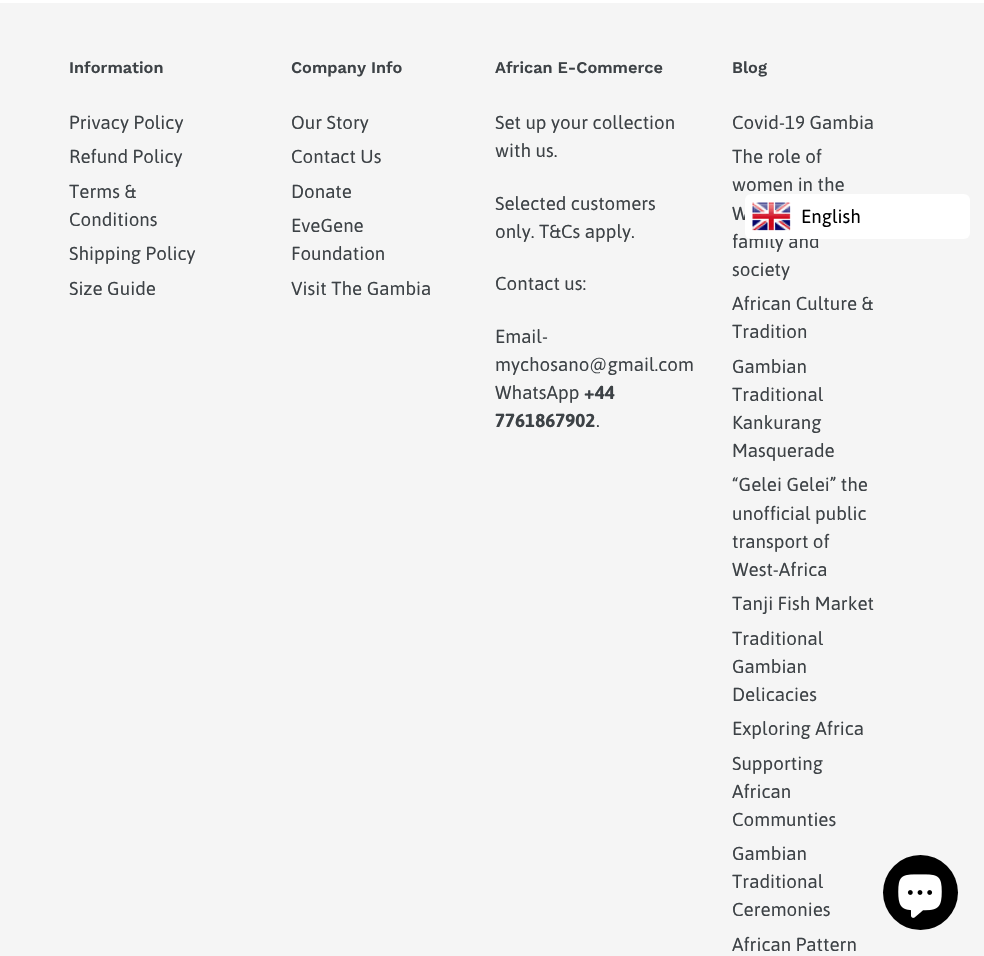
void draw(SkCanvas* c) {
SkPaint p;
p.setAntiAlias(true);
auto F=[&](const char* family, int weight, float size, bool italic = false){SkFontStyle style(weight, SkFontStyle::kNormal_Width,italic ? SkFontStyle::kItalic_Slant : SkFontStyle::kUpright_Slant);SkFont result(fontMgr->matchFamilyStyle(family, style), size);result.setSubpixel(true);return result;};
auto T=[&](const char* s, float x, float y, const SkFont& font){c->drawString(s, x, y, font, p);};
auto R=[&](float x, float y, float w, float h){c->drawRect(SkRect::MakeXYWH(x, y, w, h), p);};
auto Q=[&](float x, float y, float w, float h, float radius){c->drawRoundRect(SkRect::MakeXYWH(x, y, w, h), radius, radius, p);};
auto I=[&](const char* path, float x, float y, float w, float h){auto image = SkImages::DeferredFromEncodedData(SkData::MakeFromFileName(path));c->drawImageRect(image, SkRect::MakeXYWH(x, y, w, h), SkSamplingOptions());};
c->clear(0xffffffff);
p.setColor(0xfff5f5f5);
R(0,3,984,953);
auto f1 = F("Work Sans",600,16.25);
p.setColor(0xff3d4246);
T("Information",69,73,f1);
auto f2 = F("Asap",400,18.75);
T("Privacy Policy",69,129,f2);
T("Refund Policy",69,163,f2);
T("Terms &",69,198,f2);
T("Conditions",69,226,f2);
T("Shipping Policy",69,260,f2);
T("Size Guide",69,295,f2);
T("Company Info",291,73,f1);
T("Our Story",291,129,f2);
T("Contact Us",291,163,f2);
T("Donate",291,198,f2);
T("EveGene",291,232,f2);
T("Foundation",291,260,f2);
T("Visit The Gambia",291,295,f2);
T("African E-Commerce",495,73,f1);
T("Set up your collection",495,129,f2);
T("with us.",495,157,f2);
T("Selected customers",495,210,f2);
T("only. T&Cs apply.",495,238,f2);
T("Contact us:",495,290,f2);
T("Email-",495,343,f2);
T("mychosano@gmail.com",495,371,f2);
T("WhatsApp",495,399,f2);
auto f3 = F("Asap",700,18.75);
T("+44",584,399,f3);
T("7761867902",495,427,f3);
T(".",596,427,f2);
T("Blog",732,73,f1);
T("Covid-19 Gambia",732,129,f2);
T("The role of",732,163,f2);
T("women in the",732,191,f2);
T("W",732,220,f2);
T("family and",732,248,f2);
T("society",732,276,f2);
T("African Culture &",732,310,f2);
T("Tradition",732,338,f2);
T("Gambian",732,373,f2);
T("Traditional",732,401,f2);
T("Kankurang",732,429,f2);
T("Masquerade",732,457,f2);
T("“Gelei Gelei” the",732,491,f2);
T("unofficial public",732,520,f2);
T("transport of",732,548,f2);
T("West-Africa",732,576,f2);
T("Tanji Fish Market",732,610,f2);
T("Traditional",732,645,f2);
T("Gambian",732,673,f2);
T("Delicacies",732,701,f2);
T("Exploring Africa",732,735,f2);
T("Supporting",732,770,f2);
T("African",732,798,f2);
T("Communties",732,826,f2);
T("Gambian",732,860,f2);
T("Traditional",732,888,f2);
T("Ceremonies",732,916,f2);
T("African Pattern",732,951,f2);
p.setColor(0xffffffff);
Q(745,194,225,45,6);
I("1.png",752,202,39,29);
p.setColor(0xff000000);
T("English",801,223,f2);
c->drawCircle(920.5,892.5,37.5,p);
I("2.png",898,874,44,44);
}
